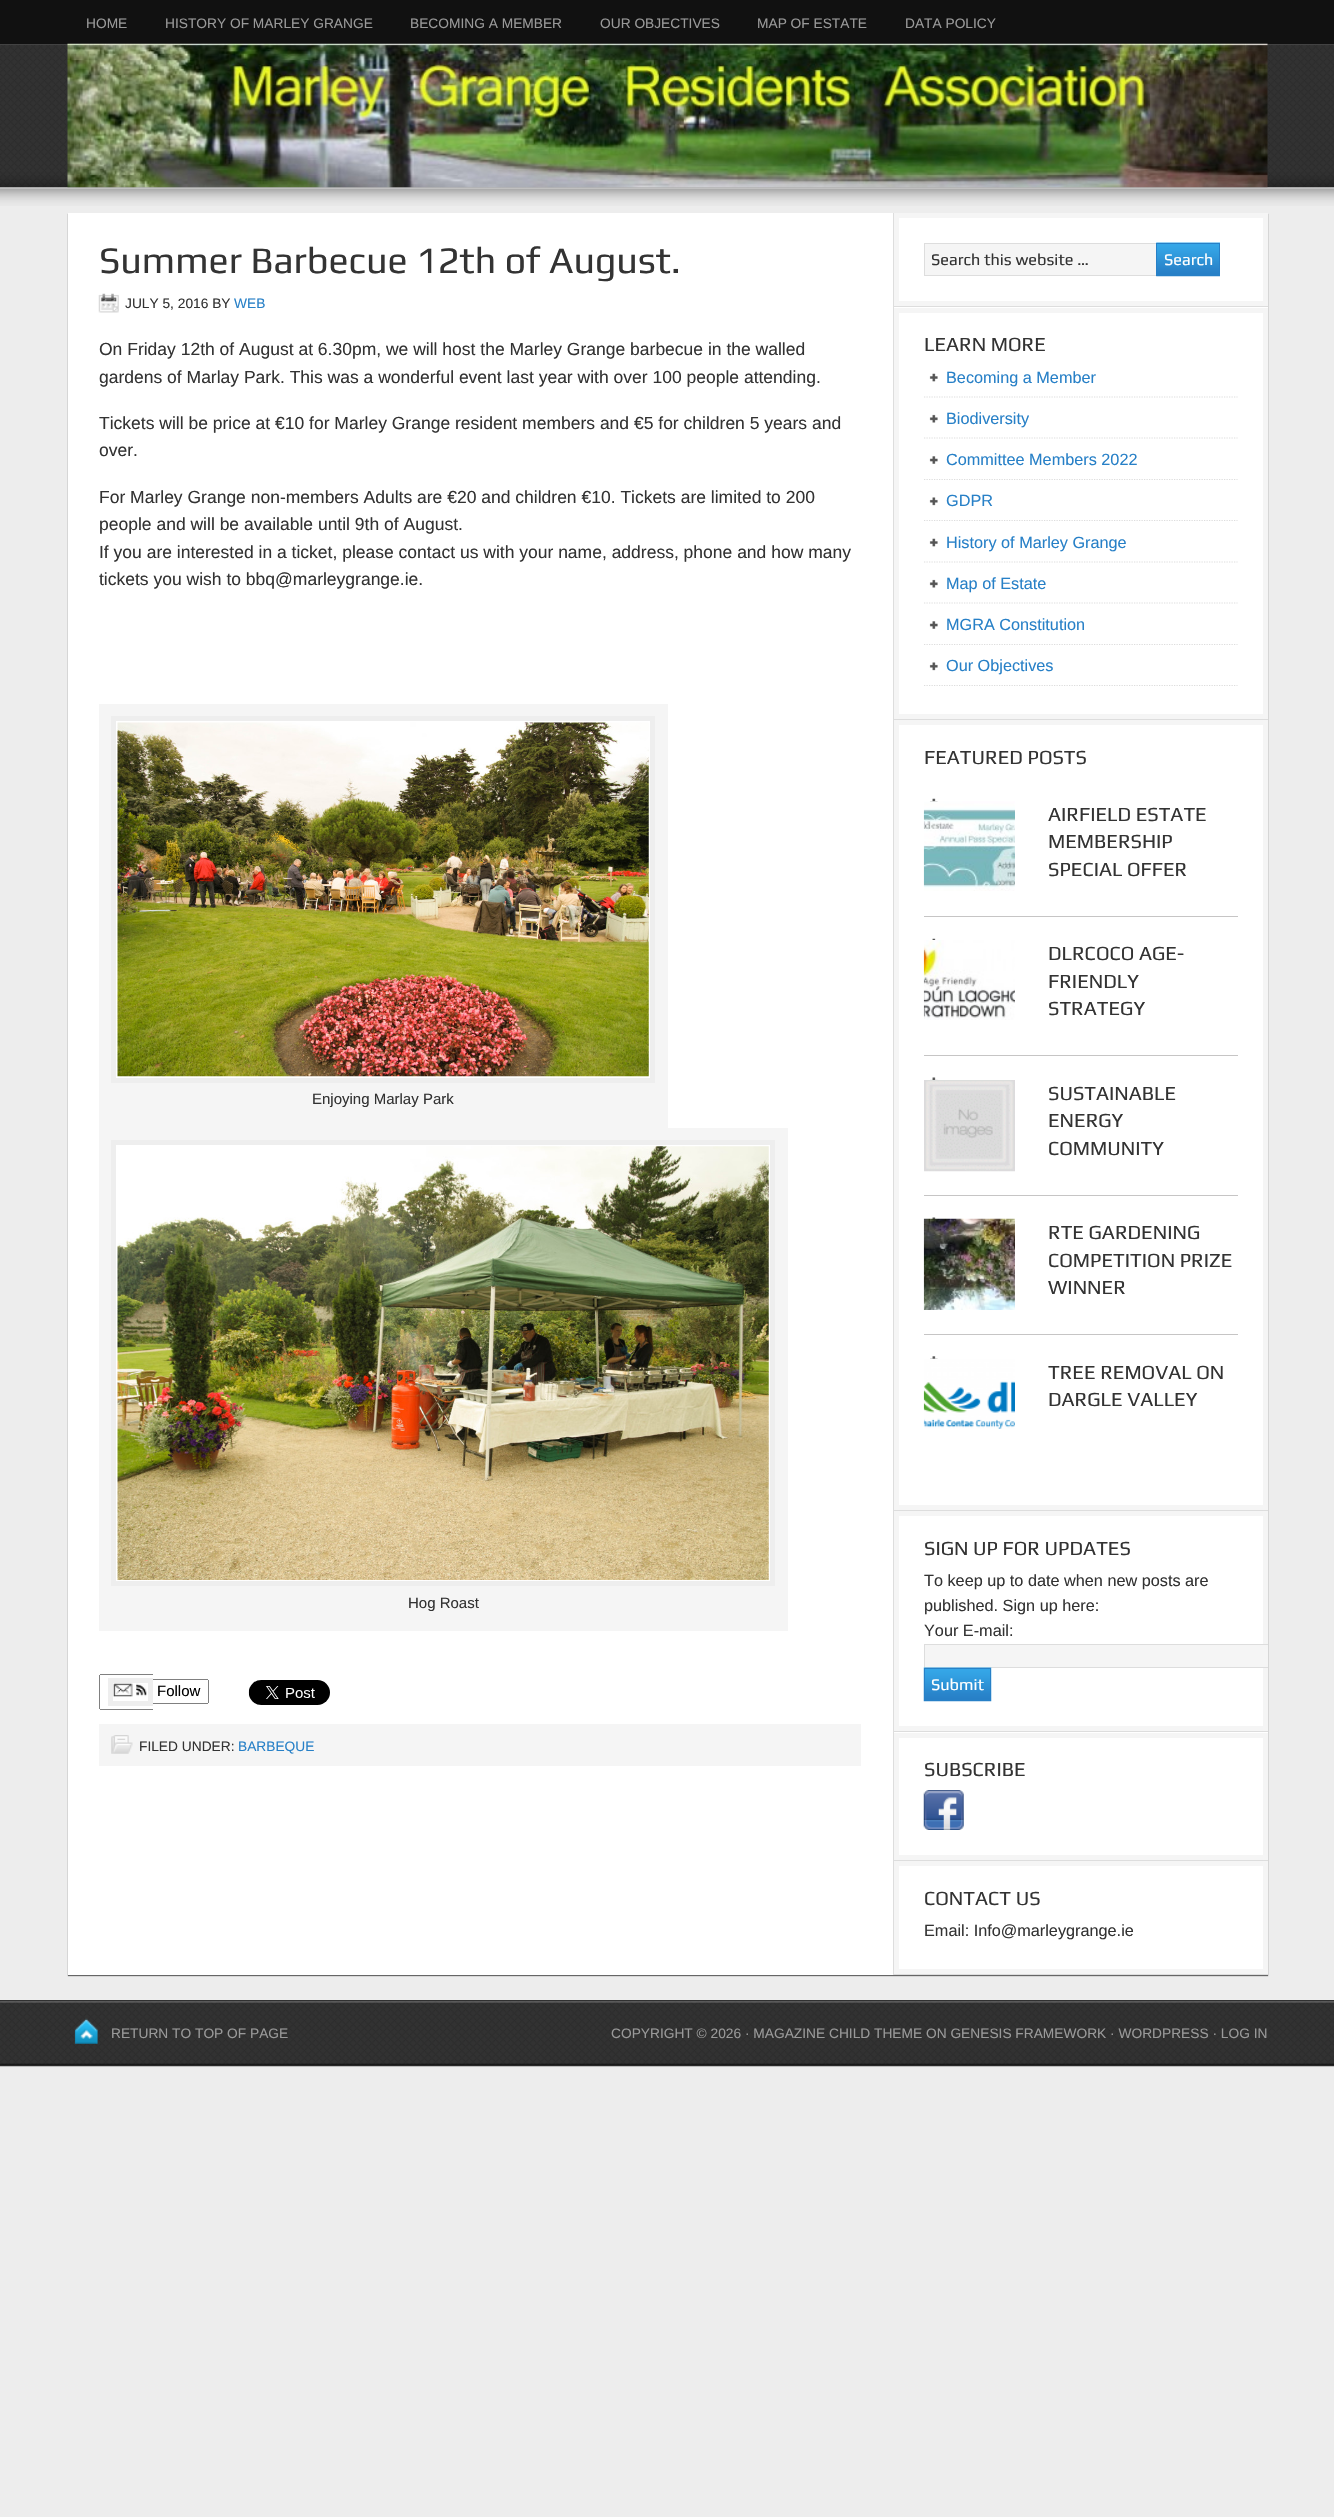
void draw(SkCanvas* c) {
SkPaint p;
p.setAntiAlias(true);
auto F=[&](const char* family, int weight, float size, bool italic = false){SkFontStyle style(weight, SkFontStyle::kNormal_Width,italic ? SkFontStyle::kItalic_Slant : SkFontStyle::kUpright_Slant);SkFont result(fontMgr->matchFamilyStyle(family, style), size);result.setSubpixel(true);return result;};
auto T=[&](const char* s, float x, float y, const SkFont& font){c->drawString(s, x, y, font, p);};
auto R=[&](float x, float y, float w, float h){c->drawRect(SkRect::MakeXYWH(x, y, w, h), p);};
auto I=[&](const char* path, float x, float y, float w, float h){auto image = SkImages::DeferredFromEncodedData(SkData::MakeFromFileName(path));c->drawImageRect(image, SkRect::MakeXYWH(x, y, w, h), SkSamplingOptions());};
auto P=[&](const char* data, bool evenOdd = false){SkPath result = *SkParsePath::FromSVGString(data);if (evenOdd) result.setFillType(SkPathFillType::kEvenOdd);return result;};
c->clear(0xffededed);
p.setColor(0xff111111);
R(0,0,1334,44);
auto f1 = F("Liberation Sans",400,13.75);
p.setColor(0xff999999);
T("HOME",86,28,f1);
T("HISTORY OF MARLEY GRANGE",165,28,f1);
T("BECOMING A MEMBER",410,28,f1);
T("OUR OBJECTIVES",600,28,f1);
T("MAP OF ESTATE",757,28,f1);
T("DATA POLICY",905,28,f1);
I("1.png",0,44,1334,144);
I("2.png",67,43,1201,145);
I("3.png",0,187,1334,19);
p.setColor(0xff666666);
p.setMaskFilter(SkMaskFilter::MakeBlur(kNormal_SkBlurStyle, .5));
c->drawRect(SkRect::MakeXYWH(68,214,1200,1762),p);
p.setMaskFilter(nullptr);
p.setColor(0xffffffff);
R(68,213,1200,1762);
auto f2 = F("Play",400,37.5);
p.setColor(0xff333333);
T("Summer Barbecue 12th of August.",99,273,f2);
I("4.png",98,293,21,20);
T("JULY 5, 2016 BY",125,308,f1);
p.setColor(0xff2780c7);
T("WEB",234,308,f1);
auto f3 = F("Liberation Sans",400,17.5);
p.setColor(0xff333333);
T("On Friday 12th of August at 6.30pm, we will host the Marley Grange barbecue in the walled",99,355,f3);
T("gardens of Marlay Park. This was a wonderful event last year with over 100 people attending.",99,383,f3);
T("Tickets will be price at €10 for Marley Grange resident members and €5 for children 5 years and",99,429,f3);
T("over.",99,456,f3);
T("For Marley Grange non-members Adults are €20 and children €10. Tickets are limited to 200",99,503,f3);
T("people and will be available until 9th of August.",99,530,f3);
T("If you are interested in a ticket, please contact us with your name, address, phone and how many",99,558,f3);
T("tickets you wish to bbq@marleygrange.ie.",99,585,f3);
p.setColor(0xfff5f5f5);
R(99,704,569,424);
p.setColor(0xffffffff);
c->drawRect(SkRect::MakeXYWH(113.5,718.5,539,362),p);
p.setStroke(true);
p.setStrokeWidth(5);
p.setColor(0xffeeeeee);
c->drawRect(SkRect::MakeXYWH(113.5,718.5,539,362),p);
I("5.png",117,722,532,355);
auto f4 = F("Liberation Sans",400,15);
p.setStroke(false);
p.setColor(0xff333333);
T("Enjoying Marlay Park",312,1104,f4);
p.setColor(0xfff5f5f5);
R(99,1128,689,503);
p.setColor(0xffffffff);
c->drawRect(SkRect::MakeXYWH(113.5,1142.5,659,441),p);
p.setStroke(true);
p.setColor(0xffeeeeee);
c->drawRect(SkRect::MakeXYWH(113.5,1142.5,659,441),p);
I("6.png",117,1146,652,434);
p.setStroke(false);
p.setColor(0xff333333);
T("Hog Roast",408,1608,f4);
p.setStroke(true);
p.setColor(0xffeeeeee);
c->drawRect(SkRect::MakeXYWH(110.5,1680.5,40,23),p);
I("7.png",113,1683,34,14);
p.setStroke(false);
p.setColor(0xff000000);
T("Follow",157,1696,f4);
p.setColor(0xff808080);
R(100,1674,53,1);
R(100,1709,53,1);
R(99,1675,1,34);
R(153,1679,55,1);
R(208,1680,1,23);
R(153,1703,55,1);
I("8.png",248,1680,82,25);
p.setColor(0xfff5f5f5);
R(99,1724,762,42);
I("9.png",111,1735,22,19);
p.setColor(0xff333333);
T("FILED UNDER:",139,1751,f1);
p.setColor(0xff2780c7);
T("BARBEQUE",238,1751,f1);
p.setColor(0xffdddddd);
R(893,306,375,1);
R(893,213,1,95);
p.setStroke(true);
p.setColor(0xfff5f5f5);
c->drawRect(SkRect::MakeXYWH(896.5,215.5,369,88),p);
p.setStroke(false);
R(925,244,231,31);
p.setStroke(true);
p.setStrokeWidth(1);
p.setColor(0xffdddddd);
c->drawRect(SkRect::MakeXYWH(924.5,243.5,239,32),p);
auto f5 = F("Play",400,16.25);
p.setStroke(false);
p.setColor(0xff333333);
T("Search this website …",931,265,f5);
I("10.png",1156,242,64,35);
p.setStroke(true);
p.setColor(0xff2780c7);
c->drawRect(SkRect::MakeXYWH(1156.5,243.5,63,32),p);
p.setStroke(false);
p.setColor(0xffffffff);
T("Search",1164,265,f5);
p.setColor(0xffdddddd);
R(893,719,375,1);
R(893,308,1,412);
p.setStroke(true);
p.setStrokeWidth(5);
p.setColor(0xfff5f5f5);
c->drawRect(SkRect::MakeXYWH(896.5,310.5,369,406),p);
auto f6 = F("Play",400,20);
p.setStroke(false);
p.setColor(0xff333333);
T("LEARN MORE",924,351,f6);
I("11.png",929,373,9,9);
p.setStroke(true);
p.setStrokeWidth(1.2);
p.setColor(0xffdddddd);
p.setPathEffect(SkDashPathEffect::Make({{1.25f,1.25f}}, 0));
c->drawPath(P("M924 397h313.5"),p);
p.setPathEffect(nullptr);
auto f7 = F("Liberation Sans",400,16.25);
p.setStroke(false);
p.setColor(0xff2780c7);
T("Becoming a Member",946,383,f7);
I("12.png",929,414,9,9);
p.setStroke(true);
p.setColor(0xffdddddd);
p.setPathEffect(SkDashPathEffect::Make({{1.25f,1.25f}}, 0));
c->drawPath(P("M924 438h313.5"),p);
p.setPathEffect(nullptr);
p.setStroke(false);
p.setColor(0xff2780c7);
T("Biodiversity",946,424,f7);
I("13.png",929,456,9,8);
p.setStroke(true);
p.setColor(0xffdddddd);
p.setPathEffect(SkDashPathEffect::Make({{1.25f,1.25f}}, 0));
c->drawPath(P("M924 479.5h313.5"),p);
p.setPathEffect(nullptr);
p.setStroke(false);
p.setColor(0xff2780c7);
T("Committee Members 2022",946,465,f7);
I("14.png",929,497,9,9);
p.setStroke(true);
p.setColor(0xffdddddd);
p.setPathEffect(SkDashPathEffect::Make({{1.25f,1.25f}}, 0));
c->drawPath(P("M924 520.5h313.5"),p);
p.setPathEffect(nullptr);
p.setStroke(false);
p.setColor(0xff2780c7);
T("GDPR",946,506,f7);
I("11.png",929,538,9,9);
p.setStroke(true);
p.setColor(0xffdddddd);
p.setPathEffect(SkDashPathEffect::Make({{1.25f,1.25f}}, 0));
c->drawPath(P("M924 562h313.5"),p);
p.setPathEffect(nullptr);
p.setStroke(false);
p.setColor(0xff2780c7);
T("History of Marley Grange",946,548,f7);
I("12.png",929,579,9,9);
p.setStroke(true);
p.setColor(0xffdddddd);
p.setPathEffect(SkDashPathEffect::Make({{1.25f,1.25f}}, 0));
c->drawPath(P("M924 603h313.5"),p);
p.setPathEffect(nullptr);
p.setStroke(false);
p.setColor(0xff2780c7);
T("Map of Estate",946,589,f7);
I("13.png",929,621,9,8);
p.setStroke(true);
p.setColor(0xffdddddd);
p.setPathEffect(SkDashPathEffect::Make({{1.25f,1.25f}}, 0));
c->drawPath(P("M924 644.5h313.5"),p);
p.setPathEffect(nullptr);
p.setStroke(false);
p.setColor(0xff2780c7);
T("MGRA Constitution",946,630,f7);
I("14.png",929,662,9,9);
p.setStroke(true);
p.setColor(0xffdddddd);
p.setPathEffect(SkDashPathEffect::Make({{1.25f,1.25f}}, 0));
c->drawPath(P("M924 685.5h313.5"),p);
p.setPathEffect(nullptr);
p.setStroke(false);
p.setColor(0xff2780c7);
T("Our Objectives",946,671,f7);
p.setColor(0xffdddddd);
R(893,1510,375,1);
R(893,720,1,791);
p.setStroke(true);
p.setStrokeWidth(5);
p.setColor(0xfff5f5f5);
c->drawRect(SkRect::MakeXYWH(896.5,722.5,369,785),p);
p.setStroke(false);
p.setColor(0xff333333);
T("FEATURED POSTS",924,764,f6);
I("15.png",929,798,9,4);
p.setColor(0xffc6c5c5);
R(924,916,314,1);
I("16.png",923,801,92,90);
p.setColor(0xff333333);
T("AIRFIELD ESTATE",1048,821,f6);
T("MEMBERSHIP",1048,848,f6);
T("SPECIAL OFFER",1048,876,f6);
I("17.png",932,938,4,2);
p.setColor(0xffc6c5c5);
R(924,1055,314,1);
I("18.png",923,940,92,80);
p.setColor(0xff333333);
T("DLRCOCO AGE-",1048,960,f6);
T("FRIENDLY",1048,988,f6);
T("STRATEGY",1048,1015,f6);
I("19.png",930,1077,8,3);
p.setColor(0xffc6c5c5);
R(924,1195,314,1);
I("20.png",924,1080,91,92);
p.setColor(0xff333333);
T("SUSTAINABLE",1048,1100,f6);
T("ENERGY",1048,1127,f6);
T("COMMUNITY",1048,1155,f6);
I("21.png",932,1217,4,2);
p.setColor(0xffc6c5c5);
R(924,1334,314,1);
I("22.png",923,1218,92,92);
p.setColor(0xff333333);
T("RTE GARDENING",1048,1239,f6);
T("COMPETITION PRIZE",1048,1267,f6);
T("WINNER",1048,1294,f6);
I("23.png",930,1356,8,3);
I("24.png",923,1358,92,71);
T("TREE REMOVAL ON",1048,1379,f6);
T("DARGLE VALLEY",1048,1406,f6);
p.setColor(0xffdddddd);
R(893,1731,375,1);
R(893,1511,1,222);
p.setStroke(true);
p.setColor(0xfff5f5f5);
c->drawRect(SkRect::MakeXYWH(896.5,1513.5,369,215),p);
p.setStroke(false);
p.setColor(0xff333333);
T("SIGN UP FOR UPDATES",924,1555,f6);
T("To keep up to date when new posts are",924,1586,f7);
T("published. Sign up here:",924,1611,f7);
T("Your E-mail:",924,1636,f7);
p.setColor(0xfff5f5f5);
R(925,1645,338,22);
c->save();
c->clipRect(SkRect::MakeXYWH(68,213,1200,1762));
p.setStroke(true);
p.setStrokeWidth(1);
p.setColor(0xffdddddd);
c->drawRect(SkRect::MakeXYWH(924.5,1644.5,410,23),p);
c->restore();
I("25.png",923,1667,69,35);
p.setColor(0xff2780c7);
c->drawRect(SkRect::MakeXYWH(924.5,1668.5,66,32),p);
p.setStroke(false);
p.setColor(0xffffffff);
T("Submit",931,1690,f5);
p.setColor(0xffdddddd);
R(893,1860,375,1);
R(893,1733,1,128);
p.setStroke(true);
p.setStrokeWidth(5);
p.setColor(0xfff5f5f5);
c->drawRect(SkRect::MakeXYWH(896.5,1735.5,369,122),p);
p.setStroke(false);
p.setColor(0xff333333);
T("SUBSCRIBE",924,1776,f6);
I("26.png",923,1790,41,40);
p.setColor(0xffdddddd);
R(893,1974,375,1);
R(893,1861,1,114);
p.setStroke(true);
p.setColor(0xfff5f5f5);
c->drawRect(SkRect::MakeXYWH(896.5,1863.5,369,108),p);
p.setStroke(false);
p.setColor(0xff333333);
T("CONTACT US",924,1905,f6);
T("Email: Info@marleygrange.ie",924,1936,f7);
I("27.png",0,2000,1334,67);
I("28.png",74,2018,24,26);
p.setColor(0xff999999);
T("RETURN TO TOP OF PAGE",111,2038,f1);
T("COPYRIGHT © 2026 · MAGAZINE CHILD THEME ON GENESIS FRAMEWORK · WORDPRESS · LOG IN",611,2038,f1);
}
